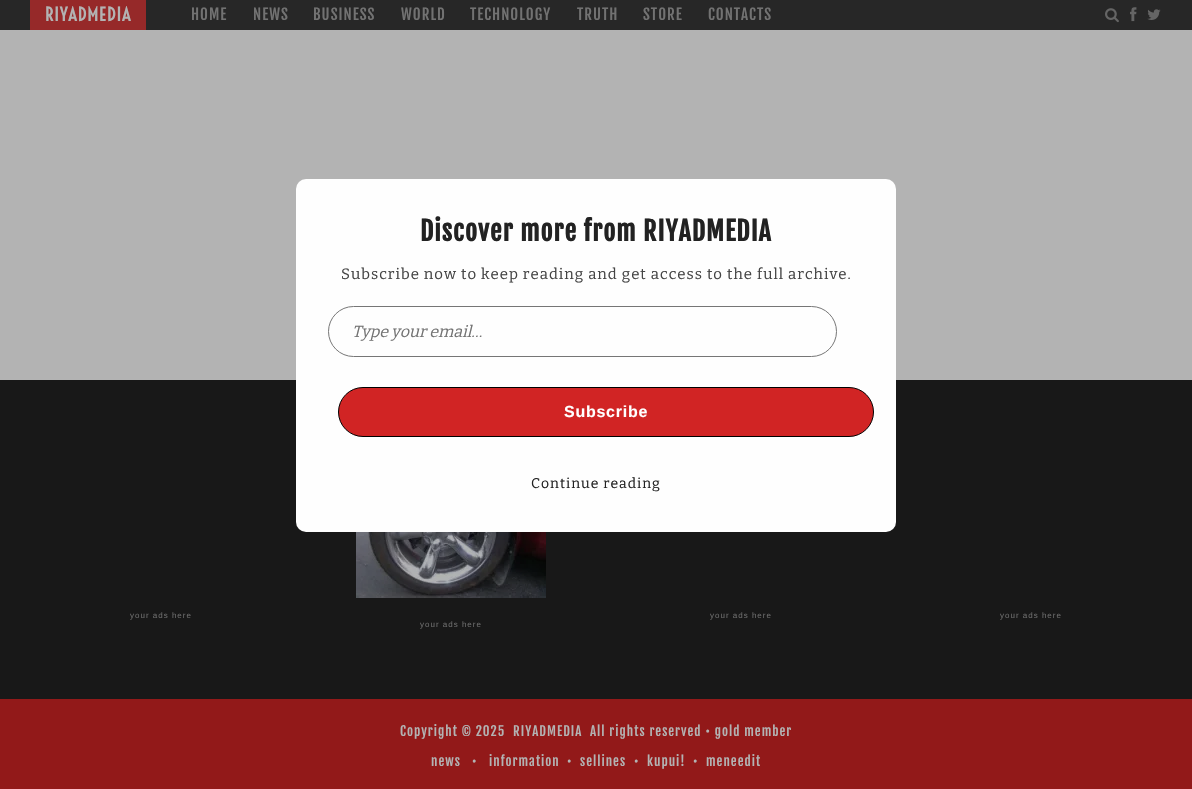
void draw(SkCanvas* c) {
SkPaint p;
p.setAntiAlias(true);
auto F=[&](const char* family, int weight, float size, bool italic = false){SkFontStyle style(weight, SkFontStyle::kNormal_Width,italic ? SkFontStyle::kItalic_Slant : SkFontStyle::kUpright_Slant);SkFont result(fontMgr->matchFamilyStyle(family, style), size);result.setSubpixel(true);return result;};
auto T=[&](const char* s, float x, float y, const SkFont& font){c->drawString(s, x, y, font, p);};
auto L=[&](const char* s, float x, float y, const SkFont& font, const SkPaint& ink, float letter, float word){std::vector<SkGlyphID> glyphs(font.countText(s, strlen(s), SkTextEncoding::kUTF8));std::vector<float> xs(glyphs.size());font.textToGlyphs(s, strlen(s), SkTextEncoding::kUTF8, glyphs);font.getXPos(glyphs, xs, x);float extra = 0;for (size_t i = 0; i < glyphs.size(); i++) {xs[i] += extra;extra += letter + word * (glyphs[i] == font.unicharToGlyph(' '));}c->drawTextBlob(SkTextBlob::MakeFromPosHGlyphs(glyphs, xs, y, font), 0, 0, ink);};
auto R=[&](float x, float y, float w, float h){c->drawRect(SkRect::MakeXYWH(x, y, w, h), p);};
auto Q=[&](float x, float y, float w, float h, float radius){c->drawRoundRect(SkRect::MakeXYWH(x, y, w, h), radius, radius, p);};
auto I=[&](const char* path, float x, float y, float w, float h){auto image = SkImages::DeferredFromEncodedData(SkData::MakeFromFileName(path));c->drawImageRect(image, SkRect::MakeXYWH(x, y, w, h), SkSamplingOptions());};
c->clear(0xffb3b3b3);
p.setColor(0xff272727);
R(0,0,1192,30);
p.setColor(0xff962929);
R(30,0,116,30);
auto f1 = F("Voltaire",700,18);
p.setColor(0xffb3b3b3);
L("RIYADMEDIA",45,21,f1,p,1,0);
auto f2 = F("Fjalla One",400,15);
p.setColor(0xff727272);
L("HOME",191,20,f2,p,1,0);
L("NEWS",253,20,f2,p,1,0);
L("BUSINESS",313,20,f2,p,1,0);
L("WORLD",401,20,f2,p,1,0);
L("TECHNOLOGY",470,20,f2,p,1,0);
L("TRUTH",577,20,f2,p,1,0);
L("STORE",643,20,f2,p,1,0);
L("CONTACTS",708,20,f2,p,1,0);
I("1.png",1105,8,14,15);
I("2.png",1130,7,7,15);
I("3.png",1147,9,14,11);
p.setColor(0xff181818);
R(0,380,1192,319);
auto f3 = F("Liberation Sans",400,8);
p.setColor(0xff6b6b6b);
L("your ads here",130,618,f3,p,1,0);
L("your ads here",710,618,f3,p,1,0);
L("your ads here",1000,618,f3,p,1,0);
I("4.png",356,532,190,66);
L("your ads here",420,627,f3,p,1,0);
p.setColor(0xff921919);
R(0,699,1192,90);
auto f4 = F("Fjalla One",400,13);
p.setColor(0xffb3b3b3);
L("Copyright © 2025",400,736,f4,p,1,0);
L("RIYADMEDIA",513,736,f4,p,1,0);
L("All rights reserved • gold member",590,736,f4,p,1,0);
L("news",431,766,f4,p,1,0);
L("•",472,766,f4,p,1,0);
L("information",489,766,f4,p,1,0);
L("•",567,766,f4,p,1,0);
L("sellines",580,766,f4,p,1,0);
L("•",634,766,f4,p,1,0);
L("kupui!",647,766,f4,p,1,0);
L("•",693,766,f4,p,1,0);
L("meneedit",706,766,f4,p,1,0);
p.setColor(0xfffefefe);
Q(296,179,600,353,10);
auto f5 = F("Fjalla One",700,26);
p.setColor(0xff222222);
L("Discover more from RIYADMEDIA",420,241,f5,p,1,0);
auto f6 = F("Bitter",400,15);
p.setColor(0xff444444);
L("Subscribe now to keep reading and get access to the full archive.",341,279,f6,p,1,0);
p.setStroke(true);
p.setStrokeWidth(1);
p.setColor(0xff767676);
c->drawRoundRect(SkRect::MakeXYWH(328.5,306.5,508,50),25,25,p);
auto f7 = F("Bitter",400,16,true);
p.setStroke(false);
p.setColor(0xff727272);
T("Type your email…",352,337,f7);
p.setColor(0xffd12424);
c->drawRoundRect(SkRect::MakeXYWH(338.5,387.5,535,49),24.5,24.5,p);
p.setStroke(true);
p.setColor(0xff000000);
c->drawRoundRect(SkRect::MakeXYWH(338.5,387.5,535,49),24.5,24.5,p);
auto f8 = F("Liberation Sans",700,16);
p.setStroke(false);
p.setColor(0xffffffff);
L("Subscribe",564,417,f8,p,.75,0);
auto f9 = F("Bitter",400,14);
p.setColor(0xff222222);
L("Continue reading",531,488,f9,p,1,0);
}
